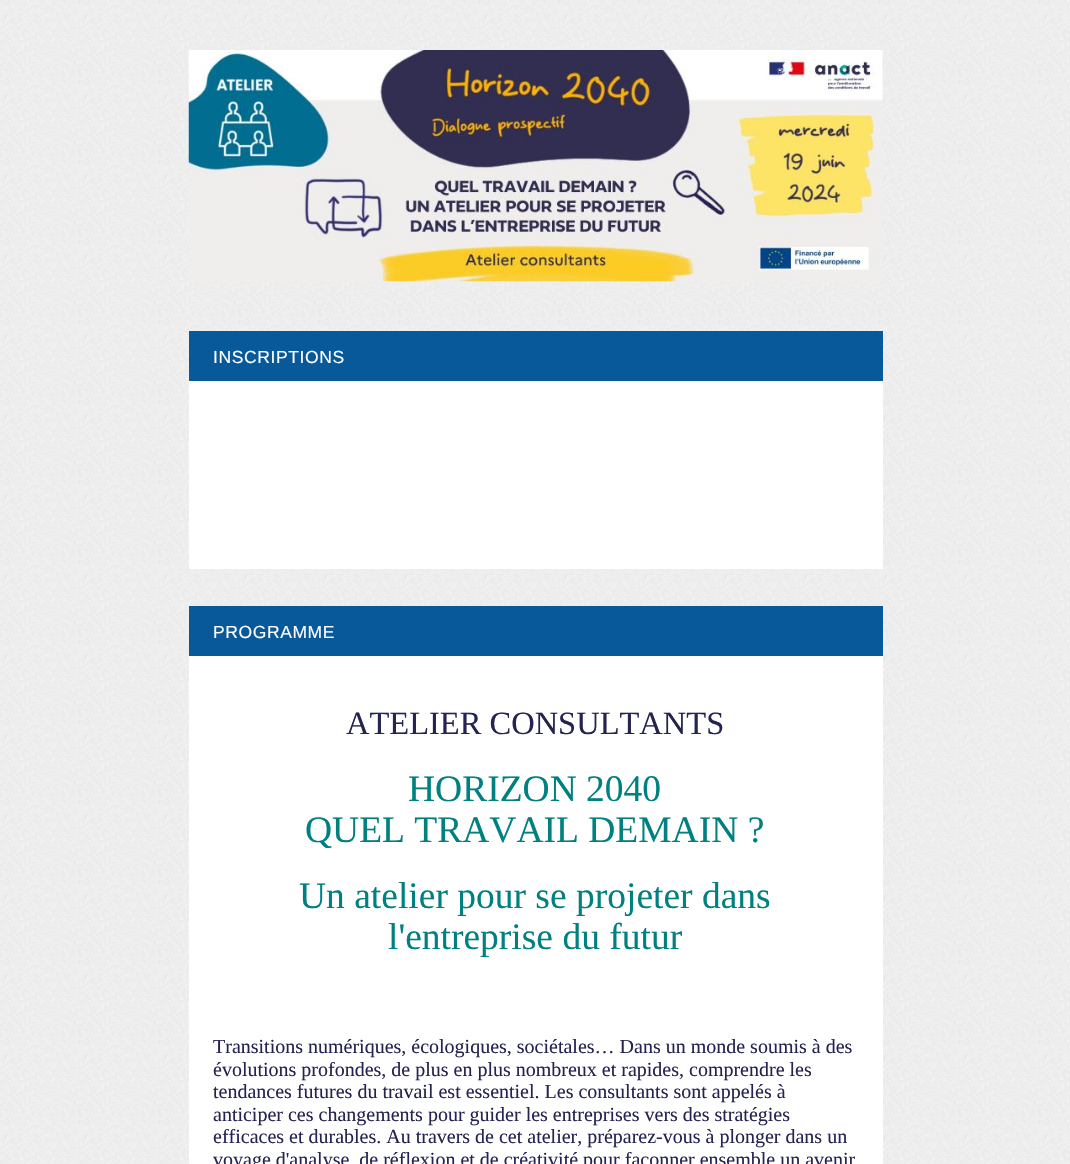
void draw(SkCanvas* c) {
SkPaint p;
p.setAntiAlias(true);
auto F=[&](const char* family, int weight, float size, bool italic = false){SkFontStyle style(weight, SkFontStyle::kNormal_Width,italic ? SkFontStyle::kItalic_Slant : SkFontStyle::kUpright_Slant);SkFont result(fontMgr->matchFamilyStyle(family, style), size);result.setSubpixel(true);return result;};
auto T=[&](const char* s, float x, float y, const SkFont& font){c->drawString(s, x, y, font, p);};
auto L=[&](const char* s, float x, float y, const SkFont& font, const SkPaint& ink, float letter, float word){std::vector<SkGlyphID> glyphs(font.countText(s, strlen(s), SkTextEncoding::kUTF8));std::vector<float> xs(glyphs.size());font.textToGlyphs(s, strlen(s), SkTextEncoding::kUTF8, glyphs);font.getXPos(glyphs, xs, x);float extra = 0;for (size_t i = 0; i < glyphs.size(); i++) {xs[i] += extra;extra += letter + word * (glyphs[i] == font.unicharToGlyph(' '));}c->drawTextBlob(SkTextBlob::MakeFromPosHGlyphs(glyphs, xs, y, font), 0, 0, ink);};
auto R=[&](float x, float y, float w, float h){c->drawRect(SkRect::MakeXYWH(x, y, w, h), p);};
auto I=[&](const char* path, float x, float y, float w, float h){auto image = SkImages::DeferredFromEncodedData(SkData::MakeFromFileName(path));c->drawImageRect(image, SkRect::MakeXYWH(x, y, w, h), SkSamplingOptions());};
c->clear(0xffffffff);
I("1.png",0,0,1070,1164);
I("2.png",188,50,695,232);
p.setColor(0xff08599a);
R(189,331,694,50);
auto f1 = F("Liberation Sans",400,17.5);
p.setColor(0xffffffff);
L("INSCRIPTIONS",213,363,f1,p,.6,0);
R(189,381,694,188);
p.setColor(0xff08599a);
R(189,606,694,50);
p.setColor(0xffffffff);
L("PROGRAMME",213,638,f1,p,.6,0);
R(189,656,694,508);
auto f2 = F("Liberation Serif",400,32.5);
p.setColor(0xff252351);
T("ATELIER CONSULTANTS",346,734,f2);
auto f3 = F("Liberation Serif",400,37.5);
p.setColor(0xff008080);
T("HORIZON 2040",408,801,f3);
T("QUEL TRAVAIL DEMAIN ?",305,842,f3);
T("Un atelier pour se projeter dans",299,908,f3);
T("l'entreprise du futur",388,949,f3);
auto f4 = F("Liberation Serif",400,20);
p.setColor(0xff252351);
T("Transitions numériques, écologiques, sociétales… Dans un monde soumis à des",213,1053,f4);
T("évolutions profondes, de plus en plus nombreux et rapides, comprendre les",213,1076,f4);
T("tendances futures du travail est essentiel. Les consultants sont appelés à",213,1098,f4);
T("anticiper ces changements pour guider les entreprises vers des stratégies",213,1121,f4);
T("efficaces et durables. Au travers de cet atelier, préparez-vous à plonger dans un",213,1143,f4);
T("voyage d'analyse, de réflexion et de créativité pour façonner ensemble un avenir",213,1166,f4);
}
